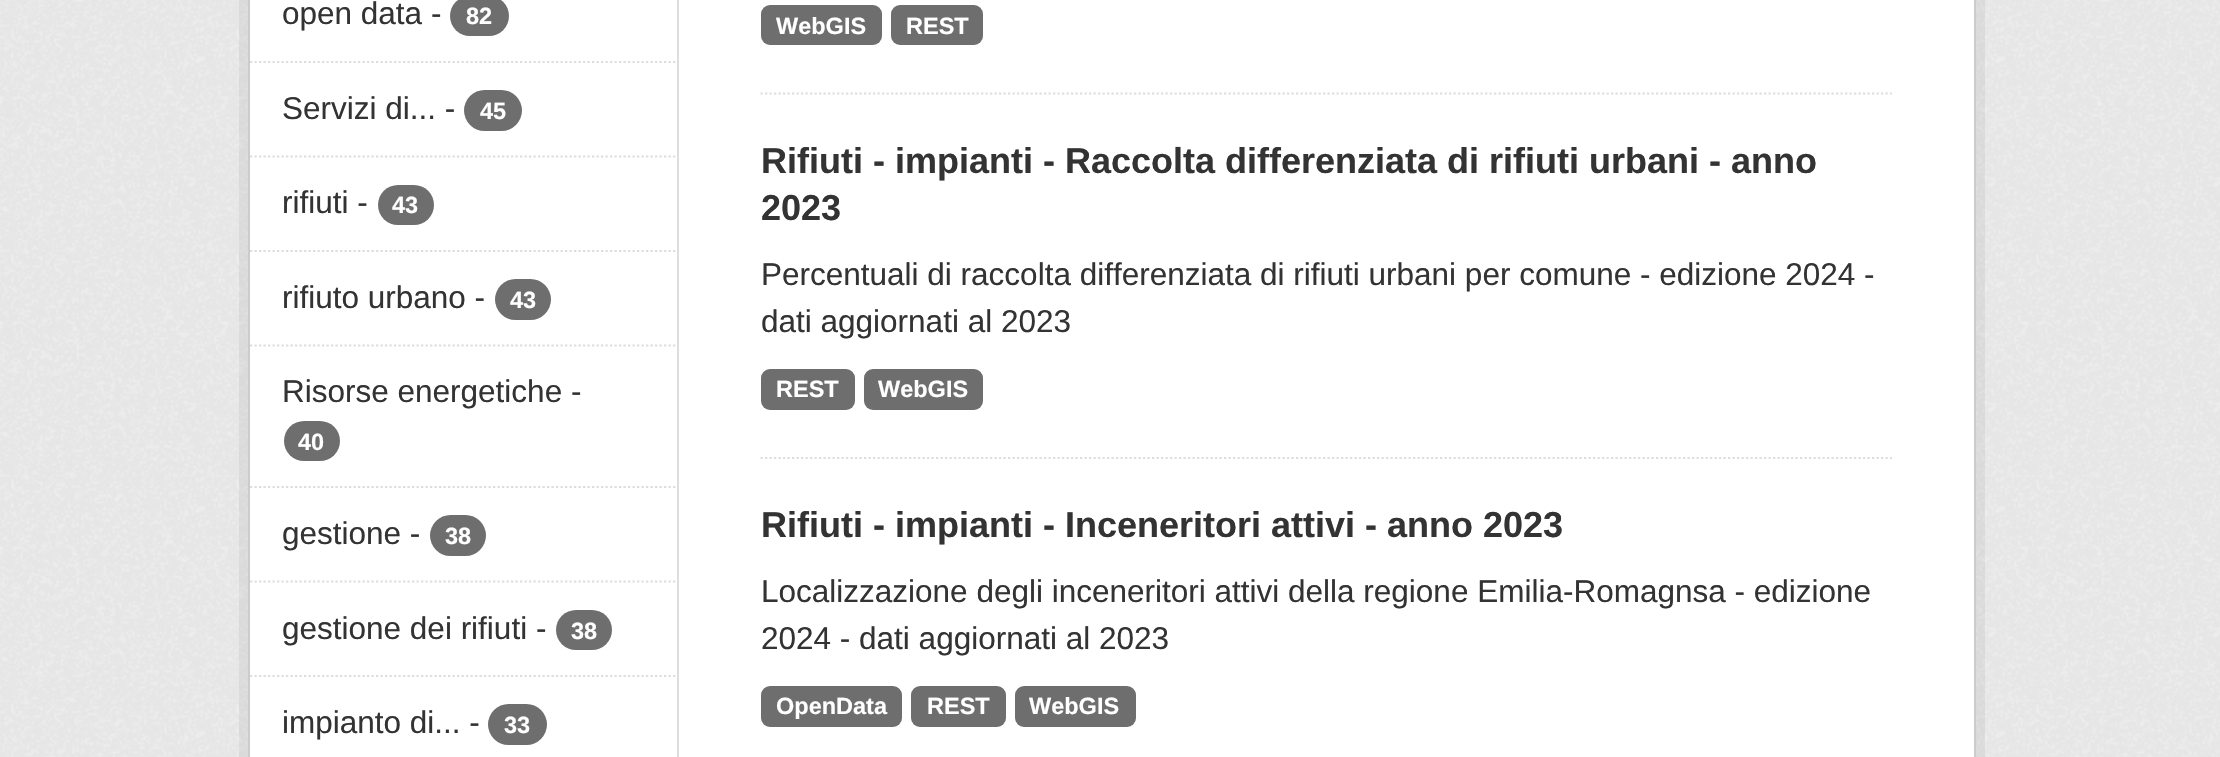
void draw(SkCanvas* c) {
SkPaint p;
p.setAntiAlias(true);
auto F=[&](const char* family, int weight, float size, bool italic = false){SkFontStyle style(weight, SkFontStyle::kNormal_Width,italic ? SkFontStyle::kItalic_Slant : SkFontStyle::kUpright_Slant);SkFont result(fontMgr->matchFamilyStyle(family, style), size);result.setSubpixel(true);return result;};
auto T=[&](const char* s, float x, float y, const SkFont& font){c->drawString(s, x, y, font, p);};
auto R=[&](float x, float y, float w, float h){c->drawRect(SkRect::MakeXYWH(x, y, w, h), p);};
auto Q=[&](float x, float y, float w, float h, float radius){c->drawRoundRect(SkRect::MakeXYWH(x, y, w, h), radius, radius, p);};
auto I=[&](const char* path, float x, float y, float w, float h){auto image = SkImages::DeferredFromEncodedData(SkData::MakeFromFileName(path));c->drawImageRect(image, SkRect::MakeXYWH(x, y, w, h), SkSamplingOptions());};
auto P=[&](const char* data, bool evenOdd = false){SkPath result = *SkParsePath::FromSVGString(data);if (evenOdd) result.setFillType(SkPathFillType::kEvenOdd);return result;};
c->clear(0xffeeeeee);
I("1.png",0,0,2220,757);
p.setStroke(true);
p.setStrokeWidth(9);
p.setColor(0x0d000000);
c->drawRect(SkRect::MakeXYWH(243.5,-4.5,1737,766),p);
p.setStroke(false);
p.setColor(0xffffffff);
c->drawRect(SkRect::MakeXYWH(249,-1,1726,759),p);
p.setStroke(true);
p.setStrokeWidth(2);
p.setColor(0xffcccccc);
c->drawRect(SkRect::MakeXYWH(249,-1,1726,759),p);
p.setStrokeWidth(2.2);
p.setColor(0xffdddddd);
p.setPathEffect(SkDashPathEffect::Make({{2.25f,2.25f}}, 0));
c->drawPath(P("M250 62h427"),p);
p.setPathEffect(nullptr);
auto f1 = F("Liberation Sans",400,31.5);
p.setStroke(false);
p.setColor(0xff333333);
T("open data -",282,24,f1);
p.setColor(0xff6e6e6e);
Q(450,-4,59,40,20);
auto f2 = F("Liberation Sans",700,23.5);
p.setColor(0xffffffff);
T("82",466,24,f2);
p.setStroke(true);
p.setColor(0xffdddddd);
p.setPathEffect(SkDashPathEffect::Make({{2.25f,2.25f}}, 0));
c->drawPath(P("M250 156.5h427"),p);
p.setPathEffect(nullptr);
p.setStroke(false);
p.setColor(0xff333333);
T("Servizi di... -",282,119,f1);
p.setColor(0xff6e6e6e);
Q(464,90,58,41,20.5);
p.setColor(0xffffffff);
T("45",480,119,f2);
p.setStroke(true);
p.setColor(0xffdddddd);
p.setPathEffect(SkDashPathEffect::Make({{2.25f,2.25f}}, 0));
c->drawPath(P("M250 251h427"),p);
p.setPathEffect(nullptr);
p.setStroke(false);
p.setColor(0xff333333);
T("rifiuti -",282,213,f1);
p.setColor(0xff6e6e6e);
Q(378,185,56,40,20);
p.setColor(0xffffffff);
T("43",392,213,f2);
p.setStroke(true);
p.setColor(0xffdddddd);
p.setPathEffect(SkDashPathEffect::Make({{2.25f,2.25f}}, 0));
c->drawPath(P("M250 345.5h427"),p);
p.setPathEffect(nullptr);
p.setStroke(false);
p.setColor(0xff333333);
T("rifiuto urbano -",282,308,f1);
p.setColor(0xff6e6e6e);
Q(495,279,56,41,20.5);
p.setColor(0xffffffff);
T("43",510,308,f2);
p.setStroke(true);
p.setColor(0xffdddddd);
p.setPathEffect(SkDashPathEffect::Make({{2.25f,2.25f}}, 0));
c->drawPath(P("M250 487h427"),p);
p.setPathEffect(nullptr);
p.setStroke(false);
p.setColor(0xff333333);
T("Risorse energetiche -",282,402,f1);
p.setColor(0xff6e6e6e);
Q(284,421,56,40,20);
p.setColor(0xffffffff);
T("40",298,450,f2);
p.setStroke(true);
p.setColor(0xffdddddd);
p.setPathEffect(SkDashPathEffect::Make({{2.25f,2.25f}}, 0));
c->drawPath(P("M250 581.5h427"),p);
p.setPathEffect(nullptr);
p.setStroke(false);
p.setColor(0xff333333);
T("gestione -",282,544,f1);
p.setColor(0xff6e6e6e);
Q(430,515,56,41,20.5);
p.setColor(0xffffffff);
T("38",445,544,f2);
p.setStroke(true);
p.setColor(0xffdddddd);
p.setPathEffect(SkDashPathEffect::Make({{2.25f,2.25f}}, 0));
c->drawPath(P("M250 676h427"),p);
p.setPathEffect(nullptr);
p.setStroke(false);
p.setColor(0xff333333);
T("gestione dei rifiuti -",282,639,f1);
p.setColor(0xff6e6e6e);
Q(556,610,56,40,20);
p.setColor(0xffffffff);
T("38",571,639,f2);
p.setColor(0xff333333);
T("impianto di... -",282,733,f1);
p.setColor(0xff6e6e6e);
Q(488,704,59,41,20.5);
p.setColor(0xffffffff);
T("33",504,733,f2);
p.setColor(0xffdddddd);
R(677,0,2,757);
p.setStroke(true);
p.setPathEffect(SkDashPathEffect::Make({{2.25f,2.25f}}, 0));
c->drawPath(P("M760.5 93.5h1131.5"),p);
p.setPathEffect(nullptr);
p.setStroke(false);
p.setColor(0xff6e6e6e);
Q(761,5,121,40,9);
p.setColor(0xffffffff);
T("WebGIS",776,34,f2);
p.setColor(0xff6e6e6e);
Q(891,5,92,40,9);
p.setColor(0xffffffff);
T("REST",906,34,f2);
p.setStroke(true);
p.setColor(0xffdddddd);
p.setPathEffect(SkDashPathEffect::Make({{2.25f,2.25f}}, 0));
c->drawPath(P("M760.5 458h1131.5"),p);
p.setPathEffect(nullptr);
auto f3 = F("Liberation Sans",700,36);
p.setStroke(false);
p.setColor(0xff333333);
T("Rifiuti - impianti - Raccolta differenziata di rifiuti urbani - anno",761,173,f3);
T("2023",761,220,f3);
T("Percentuali di raccolta differenziata di rifiuti urbani per comune - edizione 2024 -",761,285,f1);
T("dati aggiornati al 2023",761,332,f1);
p.setColor(0xff6e6e6e);
Q(761,369,94,41,9);
p.setColor(0xffffffff);
T("REST",776,397,f2);
p.setColor(0xff6e6e6e);
Q(864,369,119,41,9);
p.setColor(0xffffffff);
T("WebGIS",878,397,f2);
p.setColor(0xff333333);
T("Rifiuti - impianti - Inceneritori attivi - anno 2023",761,537,f3);
T("Localizzazione degli inceneritori attivi della regione Emilia-Romagnsa - edizione",761,602,f1);
T("2024 - dati aggiornati al 2023",761,649,f1);
p.setColor(0xff6e6e6e);
Q(761,686,141,41,9);
p.setColor(0xffffffff);
T("OpenData",776,714,f2);
p.setColor(0xff6e6e6e);
Q(911,686,95,41,9);
p.setColor(0xffffffff);
T("REST",927,714,f2);
p.setColor(0xff6e6e6e);
Q(1015,686,121,41,9);
p.setColor(0xffffffff);
T("WebGIS",1029,714,f2);
}
